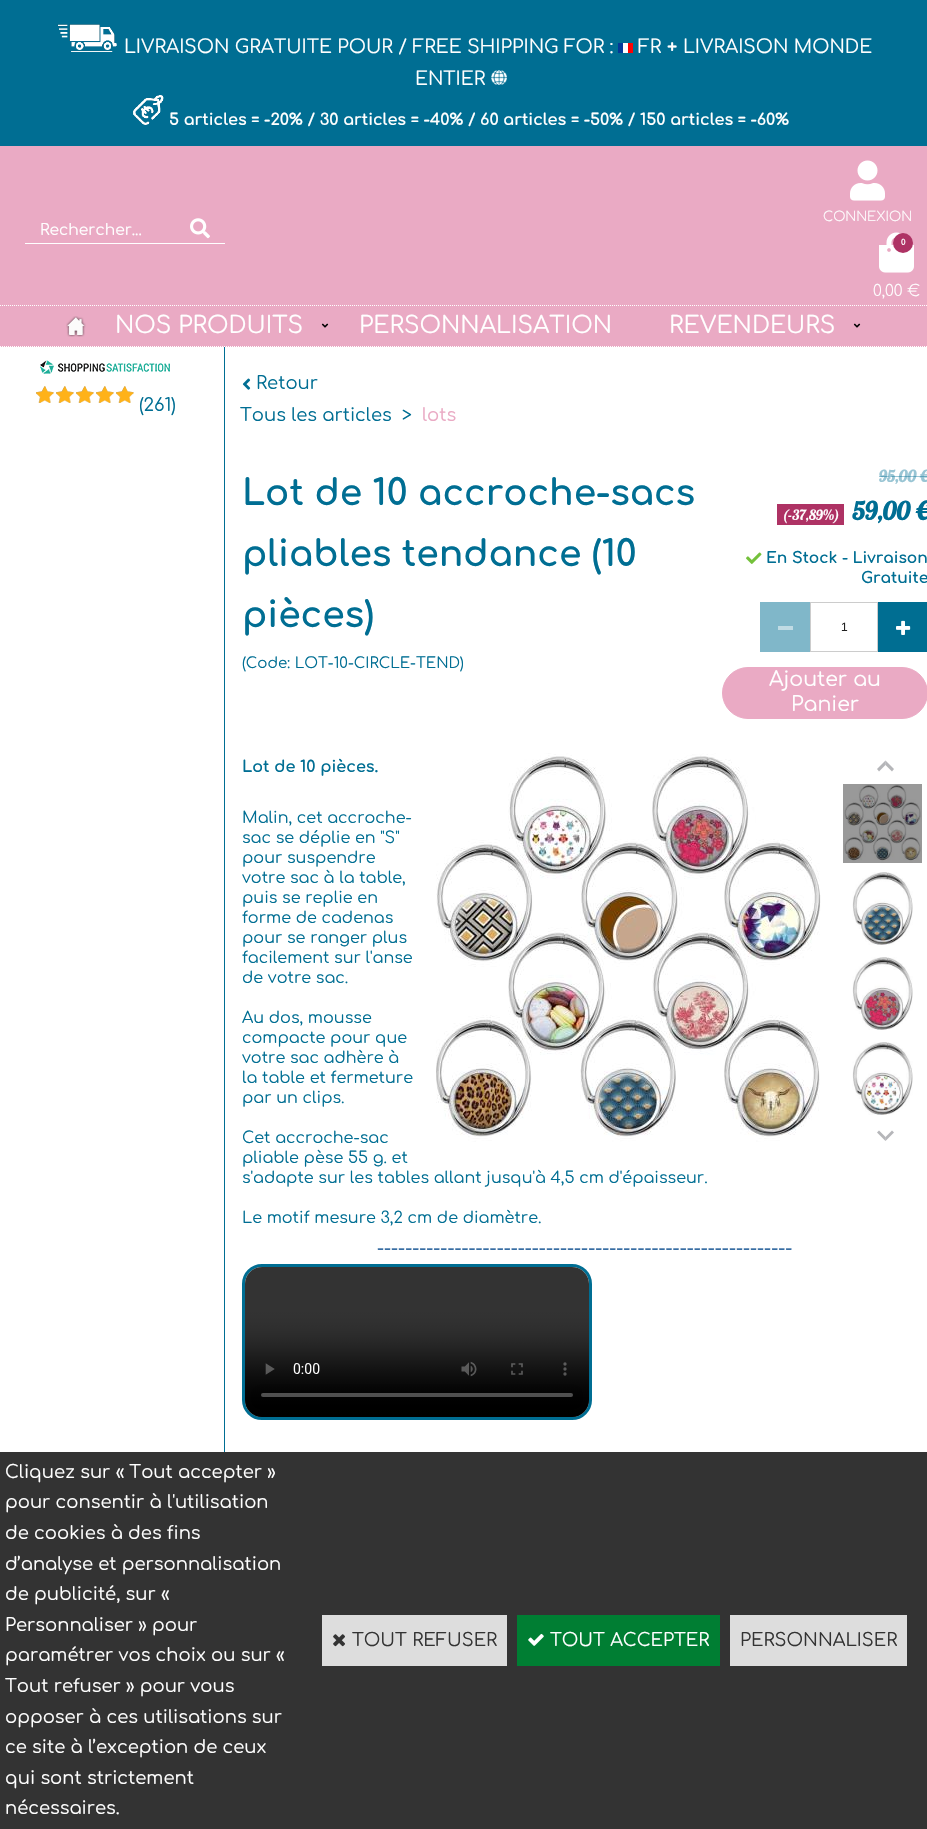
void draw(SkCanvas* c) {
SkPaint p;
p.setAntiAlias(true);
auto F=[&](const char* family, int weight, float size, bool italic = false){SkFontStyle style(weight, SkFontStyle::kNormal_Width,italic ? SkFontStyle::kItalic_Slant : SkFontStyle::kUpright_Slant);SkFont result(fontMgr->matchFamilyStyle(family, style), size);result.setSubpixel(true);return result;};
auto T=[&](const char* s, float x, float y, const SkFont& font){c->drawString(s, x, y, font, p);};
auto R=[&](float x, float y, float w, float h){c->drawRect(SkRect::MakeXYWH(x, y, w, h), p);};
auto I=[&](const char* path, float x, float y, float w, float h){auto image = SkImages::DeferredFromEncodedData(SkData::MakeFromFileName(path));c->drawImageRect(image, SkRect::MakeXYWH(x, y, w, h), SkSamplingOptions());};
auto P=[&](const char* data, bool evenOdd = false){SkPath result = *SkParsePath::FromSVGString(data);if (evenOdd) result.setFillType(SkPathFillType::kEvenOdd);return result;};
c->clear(0xffffffff);
p.setColor(0xff006e93);
R(0,0,927,146);
I("1.png",57,24,60,28);
auto f1 = F("Comfortaa",400,18.7);
p.setColor(0xffffffff);
T("LIVRAISON GRATUITE POUR / FREE SHIPPING FOR :",124,53,f1);
I("2.png",618,43,15,10);
T("FR",638,53,f1);
auto f2 = F("Comfortaa",700,18.7);
T("+",667,53,f2);
T("LIVRAISON MONDE",683,53,f1);
T("ENTIER",415,85,f1);
I("3.png",491,70,16,15);
I("4.png",132,95,32,30);
auto f3 = F("Comfortaa",700,16);
T("5 articles = -20% / 30 articles = -40% / 60 articles = -50% / 150 articles = -60%",169,125,f3);
p.setColor(0xffeaaac4);
R(0,146,927,201);
p.setColor(0xffffffff);
R(25,243,200,1);
auto f4 = F("Comfortaa",400,15.5);
T("Rechercher...",40,235,f4);
I("5.png",190,218,20,21);
I("6.png",850,160,35,41);
auto f5 = F("Comfortaa",300,13.25);
T("CONNEXION",823,221,f5);
I("7.png",879,232,35,41);
p.setColor(0xffae3264);
c->drawCircle(903,243,10,p);
auto f6 = F("Comfortaa",700,8);
p.setColor(0xffffffff);
T("0",901,245,f6);
auto f7 = F("Comfortaa",300,15.5);
T("0,00 €",873,296,f7);
p.setStroke(true);
p.setStrokeWidth(1);
p.setPathEffect(SkDashPathEffect::Make({{1,1}}, 0));
c->drawPath(P("M0 305.5h927"),p);
p.setPathEffect(nullptr);
p.setPathEffect(SkDashPathEffect::Make({{1,1}}, 0));
c->drawPath(P("M0 346.5h927"),p);
p.setPathEffect(nullptr);
I("8.png",66,316,20,21);
auto f8 = F("Comfortaa",400,23.4);
p.setStroke(false);
T("NOS PRODUITS",115,333,f8);
I("9.png",321,323,8,5);
T("PERSONNALISATION",359,333,f8);
T("REVENDEURS",669,333,f8);
I("9.png",853,323,8,5);
p.setColor(0xff006e93);
R(224,347,1,1105);
I("10.png",40,360,130,14);
I("11.png",36,386,98,17);
I("12.png",36,386,98,17);
auto f9 = F("Comfortaa",400,18);
T("(261)",139,411,f9);
I("13.png",242,378,9,12);
T("Retour",256,389,f9);
T("Tous les articles",240,421,f9);
T(">",402,421,f9);
p.setColor(0xffeaaac4);
T("lots",422,421,f9);
auto f10 = F("Comfortaa",700,36);
p.setColor(0xff006e93);
T("Lot de 10 accroche-sacs",242,505,f10);
T("pliables tendance (10",242,566,f10);
T("pièces)",242,627,f10);
auto f11 = F("Comfortaa",400,15);
T("(Code: LOT-10-CIRCLE-TEND)",242,668,f11);
auto f12 = F("Lobster",700,16);
p.setColor(0xff99c5d4);
T("95,00 €",879,482,f12);
p.setColor(0x66006e93);
R(879,476,48,1);
p.setColor(0xffae3264);
R(777,504,67,21);
auto f13 = F("Lobster",400,14);
p.setColor(0xffffffff);
T("(-37,89%)",782,520,f13);
auto f14 = F("Lobster",700,25);
p.setColor(0xff006e93);
T("59,00 €",852,520,f14);
I("14.png",746,552,16,12);
auto f15 = F("Comfortaa",700,15.5);
T("En Stock - Livraison",766,563,f15);
T("Gratuite",861,583,f15);
p.setColor(0xff80b7c9);
R(760,602,50,50);
p.setColor(0xffc0dbe4);
R(778,626,15,4);
p.setStroke(true);
p.setColor(0xffcccccc);
c->drawRect(SkRect::MakeXYWH(810.5,602.5,67,49),p);
auto f16 = F("Liberation Sans",400,12);
p.setStroke(false);
p.setColor(0xff212121);
T("1",841,631,f16);
p.setColor(0xff006e92);
R(878,602,49,50);
I("15.png",896,620,15,15);
p.setColor(0xffeaaac4);
c->drawRoundRect(SkRect::MakeXYWH(722.5,667.5,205,51),25.5,25.5,p);
p.setStroke(true);
c->drawRoundRect(SkRect::MakeXYWH(722.5,667.5,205,51),25.5,25.5,p);
auto f17 = F("Comfortaa",400,20.5);
p.setStroke(false);
p.setColor(0xffffffff);
T("Ajouter au",769,686,f17);
T("Panier",791,711,f17);
I("16.png",436,753,385,389);
p.setColor(0xffb5b6b9);
c->drawPath(P("M885.5 760.5l8.5 8.5l-2 2.5l-6.5-6.5z"),p);
p.setColor(0x9983858b);
c->drawPath(P("M877 769l8.5-8.5v4.5l-6.5 6.5z"),p);
I("17.png",843,784,79,79);
I("18.png",852,872,61,73);
I("19.png",852,957,61,73);
I("20.png",852,1042,61,73);
p.setColor(0xffb5b6b9);
c->drawPath(P("M885.5 1141l-8.5-8.5l2-2l6.5 6.5z"),p);
p.setColor(0x9983858b);
c->drawPath(P("M894 1132.5l-8.5 8.5v-4l6.5-6.5z"),p);
p.setColor(0xff006e93);
T("Lot de 10 pièces.",242,772,f3);
auto f18 = F("Comfortaa",400,16);
T("Malin, cet accroche-",242,823,f18);
T("sac se déplie en \"S\"",242,843,f18);
T("pour suspendre",242,863,f18);
T("votre sac à la table,",242,883,f18);
T("puis se replie en",242,903,f18);
T("forme de cadenas",242,923,f18);
T("pour se ranger plus",242,943,f18);
T("facilement sur l'anse",242,963,f18);
T("de votre sac.",242,983,f18);
T("Au dos, mousse",242,1023,f18);
T("compacte pour que",242,1043,f18);
T("votre sac adhère à",242,1063,f18);
T("la table et fermeture",242,1083,f18);
T("par un clips.",242,1103,f18);
T("Cet accroche-sac",242,1143,f18);
T("pliable pèse 55 g. et",242,1163,f18);
T("s'adapte sur les tables allant jusqu'à 4,5 cm d'épaisseur.",242,1183,f18);
T("Le motif mesure 3,2 cm de diamètre.",242,1223,f18);
p.setColor(0xff0e4f90);
T("-----------------------------------------------------------",377,1254,f9);
p.setStroke(true);
p.setStrokeWidth(3);
p.setColor(0xff006e93);
c->drawRoundRect(SkRect::MakeXYWH(243.5,1265.5,347,153),18.5,18.5,p);
I("21.png",245,1267,344,150);
p.setStroke(false);
p.setColor(0xff333333);
R(0,1452,927,377);
p.setColor(0xffffffff);
T("Cliquez sur « Tout accepter »",5,1478,f9);
T("pour consentir à l'utilisation",5,1508,f9);
T("de cookies à des fins",5,1539,f9);
T("d’analyse et personnalisation",5,1570,f9);
T("de publicité, sur «",5,1600,f9);
T("Personnaliser » pour",5,1631,f9);
T("paramétrer vos choix ou sur «",5,1661,f9);
T("Tout refuser » pour vous",5,1692,f9);
T("opposer à ces utilisations sur",5,1723,f9);
T("ce site à l’exception de ceux",5,1753,f9);
T("qui sont strictement",5,1784,f9);
T("nécessaires.",5,1814,f9);
p.setColor(0xffdddddd);
R(322,1615,185,51);
I("22.png",333,1634,12,13);
p.setColor(0xff333333);
T("TOUT REFUSER",352,1646,f9);
p.setColor(0xff007e33);
R(517,1615,203,51);
I("23.png",528,1633,16,13);
p.setColor(0xffffffff);
T("TOUT ACCEPTER",550,1646,f9);
p.setColor(0xffdddddd);
R(730,1615,177,51);
p.setColor(0xff333333);
T("PERSONNALISER",740,1646,f9);
}
